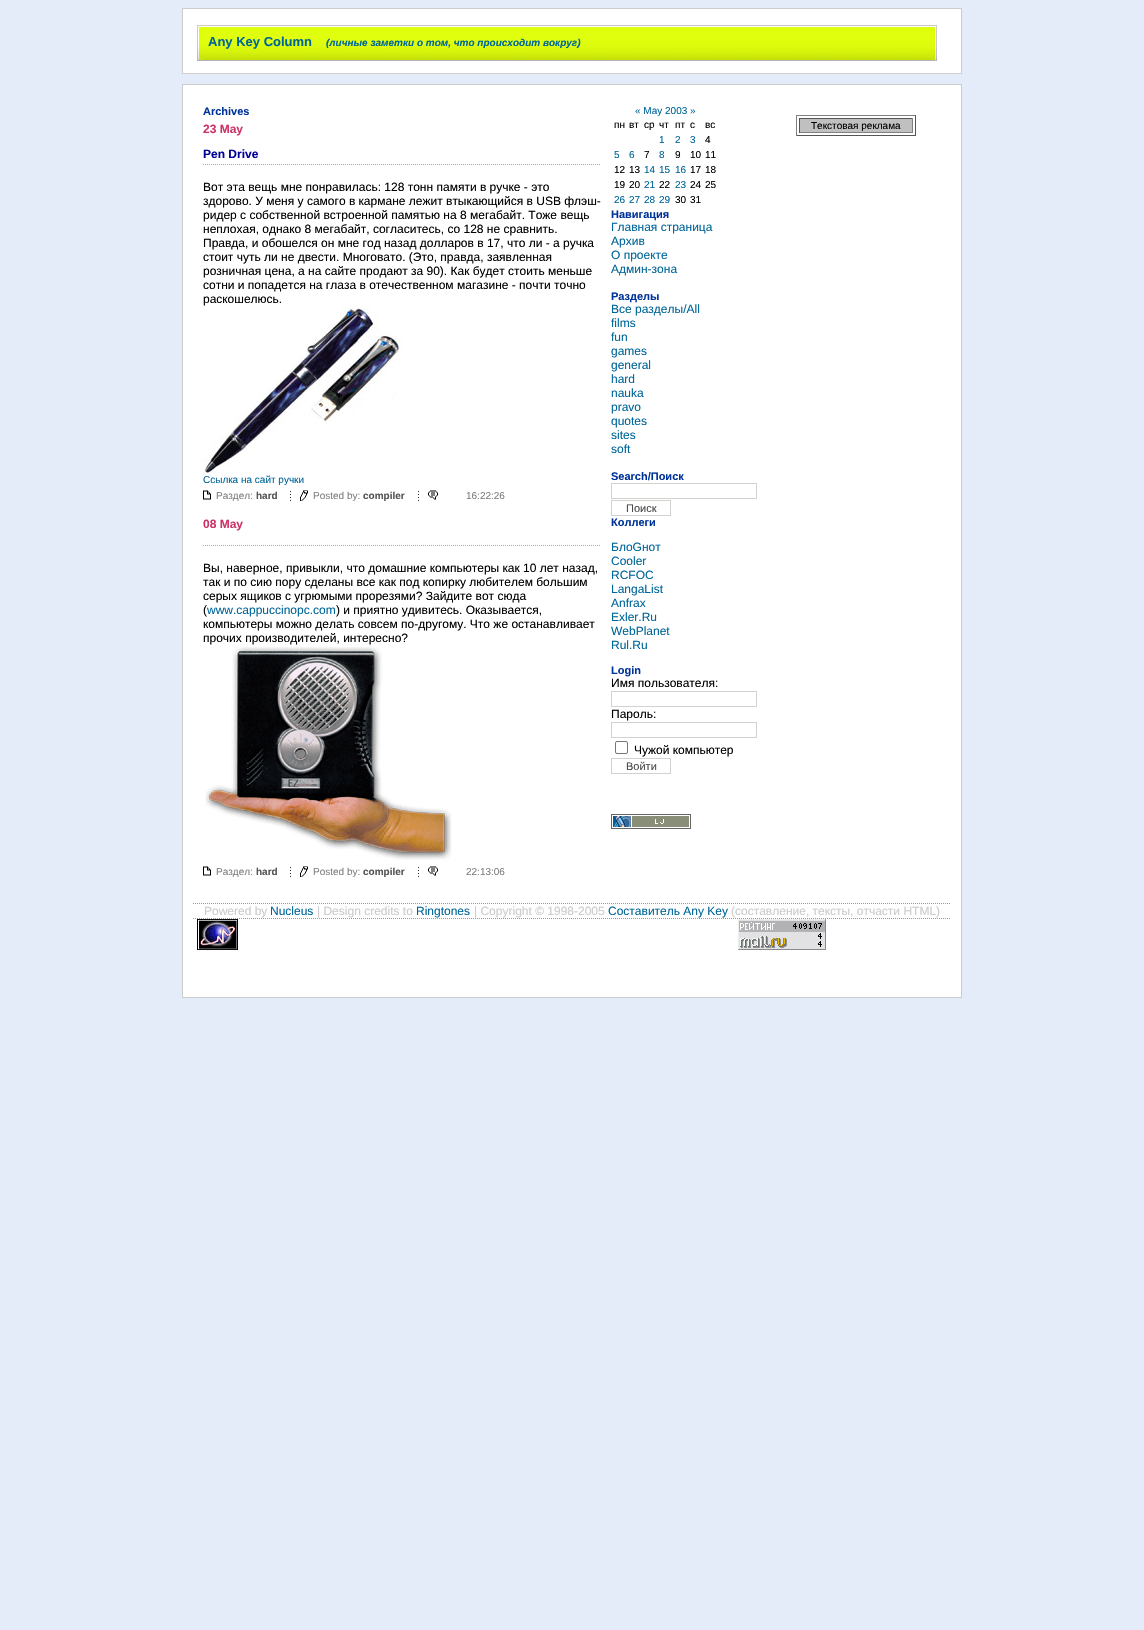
void draw(SkCanvas* c) {
SkPaint p;
p.setAntiAlias(true);
auto F=[&](const char* family, int weight, float size, bool italic = false){SkFontStyle style(weight, SkFontStyle::kNormal_Width,italic ? SkFontStyle::kItalic_Slant : SkFontStyle::kUpright_Slant);SkFont result(fontMgr->matchFamilyStyle(family, style), size);result.setSubpixel(true);return result;};
auto T=[&](const char* s, float x, float y, const SkFont& font){c->drawString(s, x, y, font, p);};
auto R=[&](float x, float y, float w, float h){c->drawRect(SkRect::MakeXYWH(x, y, w, h), p);};
auto I=[&](const char* path, float x, float y, float w, float h){auto image = SkImages::DeferredFromEncodedData(SkData::MakeFromFileName(path));c->drawImageRect(image, SkRect::MakeXYWH(x, y, w, h), SkSamplingOptions());};
auto P=[&](const char* data, bool evenOdd = false){SkPath result = *SkParsePath::FromSVGString(data);if (evenOdd) result.setFillType(SkPathFillType::kEvenOdd);return result;};
c->clear(0xffe5ecf9);
p.setColor(0xffffffff);
c->drawRect(SkRect::MakeXYWH(182.5,8.5,779,65),p);
p.setStroke(true);
p.setStrokeWidth(1);
p.setColor(0xffcccccc);
c->drawRect(SkRect::MakeXYWH(182.5,8.5,779,65),p);
I("1.png",197,24,740,37);
auto f1 = F("Liberation Sans",700,13);
p.setStroke(false);
p.setColor(0xff006699);
T("Any Key Column",208,46,f1);
auto f2 = F("Liberation Sans",700,10,true);
T("(личные заметки о том, что происходит вокруг)",326,46,f2);
p.setColor(0xffffffff);
c->drawRect(SkRect::MakeXYWH(182.5,84.5,779,913),p);
p.setStroke(true);
p.setColor(0xffcccccc);
c->drawRect(SkRect::MakeXYWH(182.5,84.5,779,913),p);
auto f3 = F("Liberation Sans",700,11);
p.setStroke(false);
p.setColor(0xff003399);
T("Archives",203,115,f3);
auto f4 = F("Liberation Sans",700,12);
p.setColor(0xffcc3366);
T("23 May",203,133,f4);
p.setStroke(true);
p.setColor(0xffa9a9a9);
p.setPathEffect(SkDashPathEffect::Make({{1,1}}, 0));
c->drawPath(P("M203 164.5h398"),p);
p.setPathEffect(nullptr);
p.setStroke(false);
p.setColor(0xff000099);
T("Pen Drive",203,158,f4);
auto f5 = F("Liberation Sans",400,12);
p.setColor(0xff000000);
T("Вот эта вещь мне понравилась: 128 тонн памяти в ручке - это",203,191,f5);
T("здорово. У меня у самого в кармане лежит втыкающийся в USB флэш-",203,205,f5);
T("ридер с собственной встроенной памятью на 8 мегабайт. Тоже вещь",203,219,f5);
T("неплохая, однако 8 мегабайт, согласитесь, со 128 не сравнить.",203,233,f5);
T("Правда, и обошелся он мне год назад долларов в 17, что ли - а ручка",203,247,f5);
T("стоит чуть ли не двести. Многовато. (Это, правда, заявленная",203,261,f5);
T("розничная цена, а на сайте продают за 90). Как будет стоить меньше",203,275,f5);
T("сотни и попадется на глаза в отечественном магазине - почти точно",203,289,f5);
T("раскошелюсь.",203,303,f5);
I("2.png",203,306,200,168);
auto f6 = F("Liberation Sans",400,10);
p.setColor(0xff006699);
T("Ссылка на сайт ручки",203,483,f6);
I("3.png",203,490,8,10);
p.setColor(0xff808080);
T("Раздел:",216,499,f6);
auto f7 = F("Liberation Sans",700,10);
p.setColor(0xff555555);
T("hard",256,499,f7);
I("4.png",290,491,1,10);
I("5.png",300,490,8,11);
p.setColor(0xff808080);
T("Posted by:",313,499,f6);
p.setColor(0xff555555);
T("compiler",363,499,f7);
I("4.png",418,491,1,10);
I("6.png",428,490,10,10);
p.setColor(0xff808080);
T("16:22:26",466,499,f6);
p.setColor(0xffcc3366);
T("08 May",203,528,f4);
p.setStroke(true);
p.setColor(0xffa9a9a9);
p.setPathEffect(SkDashPathEffect::Make({{1,1}}, 0));
c->drawPath(P("M203 545.5h398"),p);
p.setPathEffect(nullptr);
p.setStroke(false);
p.setColor(0xff000000);
T("Вы, наверное, привыкли, что домашние компьютеры как 10 лет назад,",203,572,f5);
T("так и по сию пору сделаны все как под копирку любителем большим",203,586,f5);
T("серых ящиков с угрюмыми прорезями? Зайдите вот сюда",203,600,f5);
T("(",203,614,f5);
p.setColor(0xff006699);
T("www.cappuccinopc.com",207,614,f5);
p.setColor(0xff000000);
T(") и приятно удивитесь. Оказывается,",336,614,f5);
T("компьютеры можно делать совсем по-другому. Что же останавливает",203,628,f5);
T("прочих производителей, интересно?",203,642,f5);
I("7.png",205,647,247,213);
I("3.png",203,866,8,10);
p.setColor(0xff808080);
T("Раздел:",216,875,f6);
p.setColor(0xff555555);
T("hard",256,875,f7);
I("4.png",290,867,1,10);
I("5.png",300,866,8,11);
p.setColor(0xff808080);
T("Posted by:",313,875,f6);
p.setColor(0xff555555);
T("compiler",363,875,f7);
I("4.png",418,867,1,10);
I("6.png",428,866,10,10);
p.setColor(0xff808080);
T("22:13:06",466,875,f6);
p.setColor(0xff006699);
T("« May 2003 »",635,114,f6);
p.setColor(0xff000000);
T("пн",614,128,f6);
T("вт",629,128,f6);
T("ср",644,128,f6);
T("чт",659,128,f6);
T("пт",675,128,f6);
T("с",690,128,f6);
T("вс",705,128,f6);
p.setColor(0xff006699);
T("1",659,143,f6);
T("2",675,143,f6);
T("3",690,143,f6);
p.setColor(0xff000000);
T("4",705,143,f6);
p.setColor(0xff006699);
T("5",614,158,f6);
T("6",629,158,f6);
p.setColor(0xff000000);
T("7",644,158,f6);
p.setColor(0xff006699);
T("8",659,158,f6);
p.setColor(0xff000000);
T("9",675,158,f6);
T("10",690,158,f6);
T("11",705,158,f6);
T("12",614,173,f6);
T("13",629,173,f6);
p.setColor(0xff006699);
T("14",644,173,f6);
T("15",659,173,f6);
T("16",675,173,f6);
p.setColor(0xff000000);
T("17",690,173,f6);
T("18",705,173,f6);
T("19",614,188,f6);
T("20",629,188,f6);
p.setColor(0xff006699);
T("21",644,188,f6);
p.setColor(0xff000000);
T("22",659,188,f6);
p.setColor(0xff006699);
T("23",675,188,f6);
p.setColor(0xff000000);
T("24",690,188,f6);
T("25",705,188,f6);
p.setColor(0xff006699);
T("26",614,203,f6);
T("27",629,203,f6);
T("28",644,203,f6);
T("29",659,203,f6);
p.setColor(0xff000000);
T("30",675,203,f6);
T("31",690,203,f6);
p.setColor(0xff003399);
T("Навигация",611,218,f3);
p.setColor(0xff006699);
T("Главная страница",611,231,f5);
T("Архив",611,245,f5);
T("О проекте",611,259,f5);
T("Админ-зона",611,273,f5);
p.setColor(0xff003399);
T("Разделы",611,300,f3);
p.setColor(0xff006699);
T("Все разделы/All",611,313,f5);
T("films",611,327,f5);
T("fun",611,341,f5);
T("games",611,355,f5);
T("general",611,369,f5);
T("hard",611,383,f5);
T("nauka",611,397,f5);
T("pravo",611,411,f5);
T("quotes",611,425,f5);
T("sites",611,439,f5);
T("soft",611,453,f5);
p.setColor(0xff003399);
T("Search/Поиск",611,480,f3);
p.setStroke(true);
p.setColor(0xffd4d2cf);
c->drawRect(SkRect::MakeXYWH(611.5,483.5,145,15),p);
c->drawRect(SkRect::MakeXYWH(611.5,500.5,59,15),p);
auto f8 = F("Liberation Sans",400,11);
p.setStroke(false);
p.setColor(0xff494949);
T("Поиск",626,512,f8);
p.setColor(0xff003399);
T("Коллеги",611,526,f3);
p.setColor(0xff006699);
T("БлоGнот",611,551,f5);
T("Cooler",611,565,f5);
T("RCFOC",611,579,f5);
T("LangaList",611,593,f5);
T("Anfrax",611,607,f5);
T("Exler.Ru",611,621,f5);
T("WebPlanet",611,635,f5);
T("Rul.Ru",611,649,f5);
p.setColor(0xff003399);
T("Login",611,674,f3);
p.setColor(0xff000000);
T("Имя пользователя:",611,687,f5);
p.setStroke(true);
p.setColor(0xffd4d2cf);
c->drawRect(SkRect::MakeXYWH(611.5,691.5,145,15),p);
p.setStroke(false);
p.setColor(0xff000000);
T("Пароль:",611,718,f5);
p.setStroke(true);
p.setColor(0xffd4d2cf);
c->drawRect(SkRect::MakeXYWH(611.5,722.5,145,15),p);
p.setColor(0xff767676);
c->drawRoundRect(SkRect::MakeXYWH(615.5,741.5,12,12),1.5,1.5,p);
p.setStroke(false);
p.setColor(0xff000000);
T("Чужой компьютер",634,754,f5);
p.setStroke(true);
p.setColor(0xffd4d2cf);
c->drawRect(SkRect::MakeXYWH(611.5,758.5,59,15),p);
p.setStroke(false);
p.setColor(0xff494949);
T("Войти",626,770,f8);
I("8.png",611,814,80,15);
p.setColor(0xff808080);
R(796,115,120,1);
p.setColor(0xff555555);
R(915,115,1,21);
R(796,135,120,1);
p.setColor(0xff808080);
R(796,115,1,21);
p.setColor(0xffc0c0c0);
R(800,119,112,13);
p.setColor(0xff555555);
R(799,118,114,1);
p.setColor(0xff808080);
R(912,118,1,15);
R(799,132,114,1);
p.setColor(0xff555555);
R(799,118,1,15);
p.setColor(0xff000000);
T("Текстовая реклама",811,129,f6);
p.setStroke(true);
p.setColor(0xff999999);
p.setPathEffect(SkDashPathEffect::Make({{1,1}}, 0));
c->drawPath(P("M193 903.5h758"),p);
p.setPathEffect(nullptr);
p.setStroke(false);
p.setColor(0xffcccccc);
T("Powered by",204,915,f5);
p.setColor(0xff006699);
T("Nucleus",270,915,f5);
p.setColor(0xffcccccc);
T("| Design credits to",317,915,f5);
p.setColor(0xff006699);
T("Ringtones",416,915,f5);
p.setColor(0xffcccccc);
T("| Copyright © 1998-2005",474,915,f5);
p.setColor(0xff006699);
T("Составитель Any Key",608,915,f5);
p.setColor(0xffcccccc);
T("(составление, тексты, отчасти HTML)",731,915,f5);
p.setStroke(true);
p.setColor(0xff999999);
p.setPathEffect(SkDashPathEffect::Make({{1,1}}, 0));
c->drawPath(P("M193 918.5h758"),p);
p.setPathEffect(nullptr);
I("9.png",197,919,41,31);
I("10.png",738,919,88,31);
}
